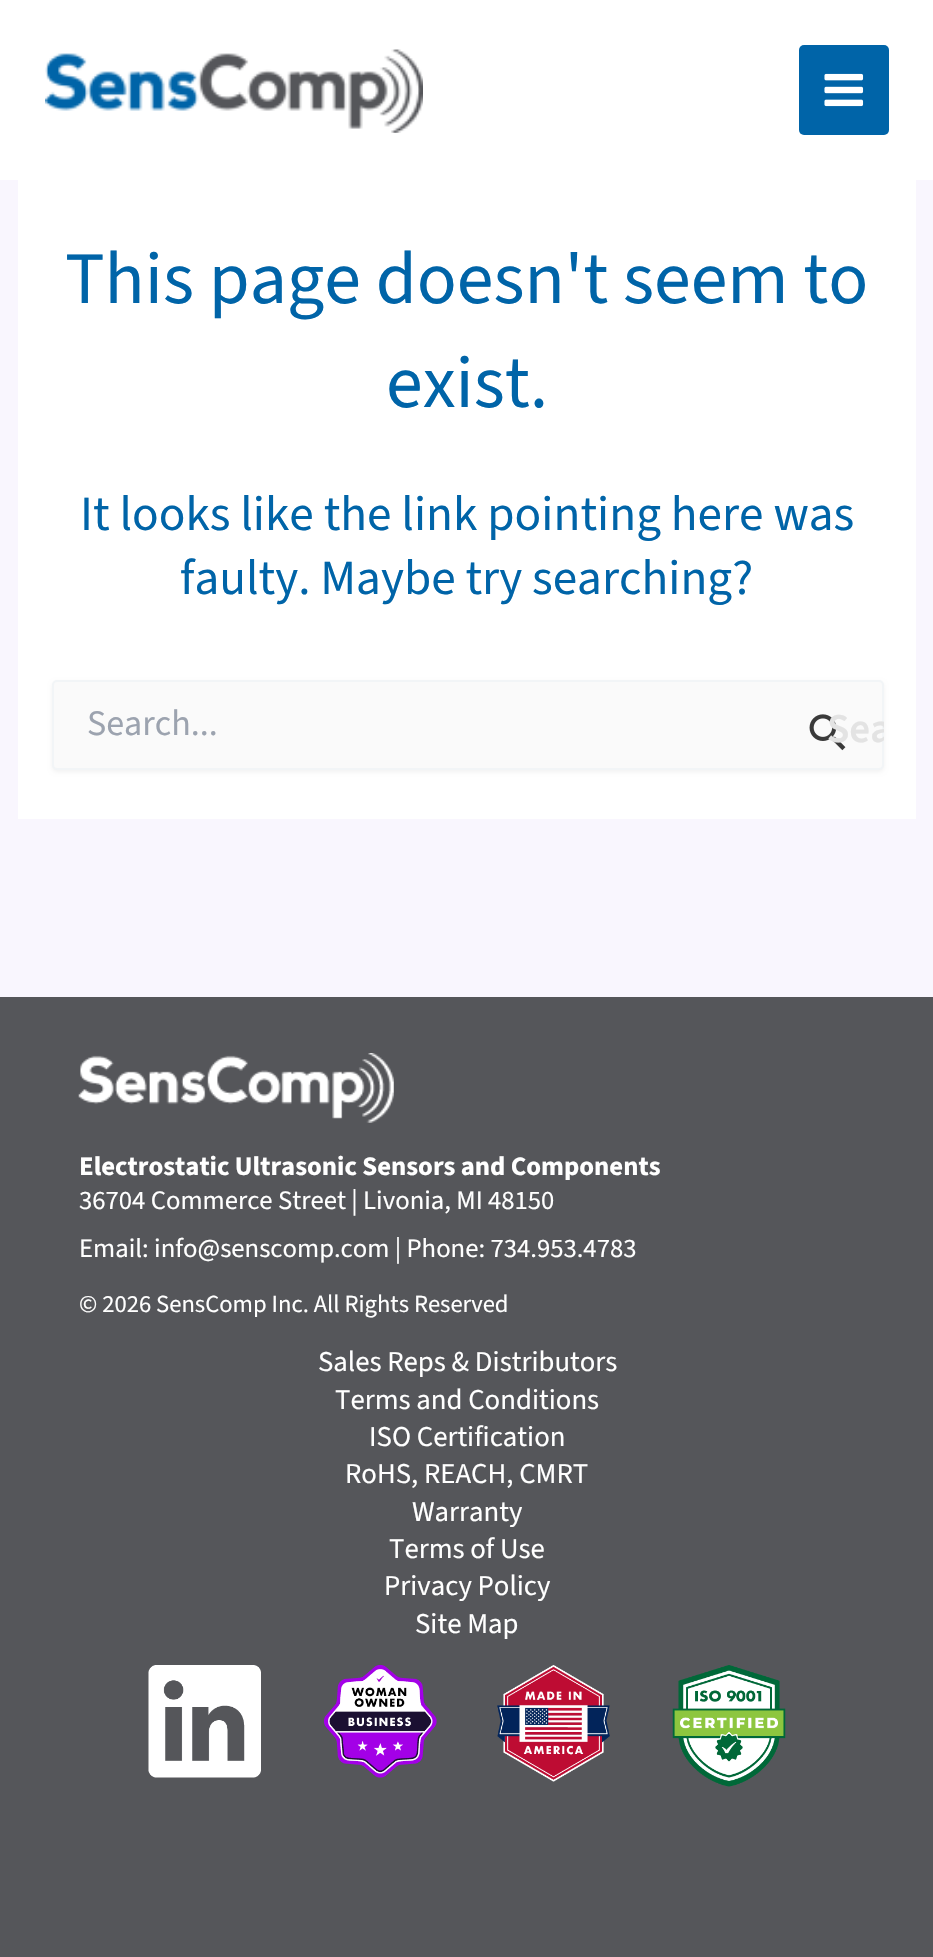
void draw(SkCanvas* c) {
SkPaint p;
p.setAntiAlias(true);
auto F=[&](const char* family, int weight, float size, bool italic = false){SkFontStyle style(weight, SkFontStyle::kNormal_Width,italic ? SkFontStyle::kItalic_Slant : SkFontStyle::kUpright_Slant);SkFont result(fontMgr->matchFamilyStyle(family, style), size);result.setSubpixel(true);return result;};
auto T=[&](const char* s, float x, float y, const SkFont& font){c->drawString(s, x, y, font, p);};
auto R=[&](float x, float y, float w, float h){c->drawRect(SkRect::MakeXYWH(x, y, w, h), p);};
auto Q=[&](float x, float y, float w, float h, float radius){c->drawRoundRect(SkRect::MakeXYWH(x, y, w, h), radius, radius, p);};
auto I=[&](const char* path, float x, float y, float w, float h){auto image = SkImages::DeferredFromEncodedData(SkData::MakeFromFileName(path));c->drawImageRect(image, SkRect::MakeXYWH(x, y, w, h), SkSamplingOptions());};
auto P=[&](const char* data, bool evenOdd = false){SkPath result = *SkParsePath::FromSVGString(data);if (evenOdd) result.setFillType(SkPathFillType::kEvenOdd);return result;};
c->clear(0xfff9f6fe);
p.setColor(0xffffffff);
R(0,0,933,180);
I("1.png",45,49,378,84);
p.setColor(0xff0064a8);
Q(799,45,90,90,5);
I("2.png",824,73,40,34);
p.setColor(0xffffffff);
R(18,180,898,639);
auto f1 = F("Source Sans 3",400,73.9);
p.setColor(0xff0064a8);
T("This page doesn't seem to",65,303,f1);
T("exist.",386,407,f1);
auto f2 = F("Source Sans 3",400,49.25);
T("It looks like the link pointing here was",80,530,f2);
T("faulty. Maybe try searching?",180,594,f2);
p.setColor(0x0d000000);
p.setMaskFilter(SkMaskFilter::MakeBlur(kNormal_SkBlurStyle, 2));
c->drawRoundRect(SkRect::MakeXYWH(52,682,832,90),5,5,p);
p.setMaskFilter(nullptr);
p.setColor(0xfffafafa);
c->drawRoundRect(SkRect::MakeXYWH(53,681,830,88),4,4,p);
p.setStroke(true);
p.setStrokeWidth(2);
p.setColor(0xfff2f5f7);
c->drawRoundRect(SkRect::MakeXYWH(53,681,830,88),4,4,p);
auto f3 = F("Source Sans 3",400,36);
p.setStroke(false);
p.setColor(0xff9ca3af);
T("Search...",87,735,f3);
I("3.png",809,714,37,37);
c->save();
c->clipPath(P("M788 680h91c3 0 5 2 5 5v89c0 3-2 5-5 5h-91c-3 0-5-2-5-5v-89c0-3 2-5 5-5z"),true);
auto f4 = F("Source Sans 3",600,41);
p.setColor(0xffe3e3e3);
T("Sea",827,742,f4);
c->restore();
p.setColor(0xff55565a);
R(0,997,933,960);
I("4.png",78,1053,316,70);
auto f5 = F("Source Sans 3",700,26.7);
p.setColor(0xffffffff);
T("Electrostatic Ultrasonic Sensors and Components",79,1175,f5);
auto f6 = F("Source Sans 3",400,26.7);
T("36704 Commerce Street | Livonia, MI 48150",79,1209,f6);
T("Email: info@senscomp.com | Phone: 734.953.4783",79,1257,f6);
auto f7 = F("Source Sans 3",400,24.6);
T("© 2026 SensComp Inc. All Rights Reserved",79,1312,f7);
auto f8 = F("Source Sans 3",400,28.75);
T("Sales Reps & Distributors",318,1371,f8);
T("Terms and Conditions",335,1409,f8);
T("ISO Certification",369,1446,f8);
T("RoHS, REACH, CMRT",345,1483,f8);
T("Warranty",412,1521,f8);
T("Terms of Use",389,1558,f8);
T("Privacy Policy",384,1595,f8);
T("Site Map",415,1633,f8);
I("5.png",148,1665,113,113);
I("6.png",324,1665,113,113);
I("7.png",497,1665,113,117);
I("8.png",672,1665,114,122);
}
